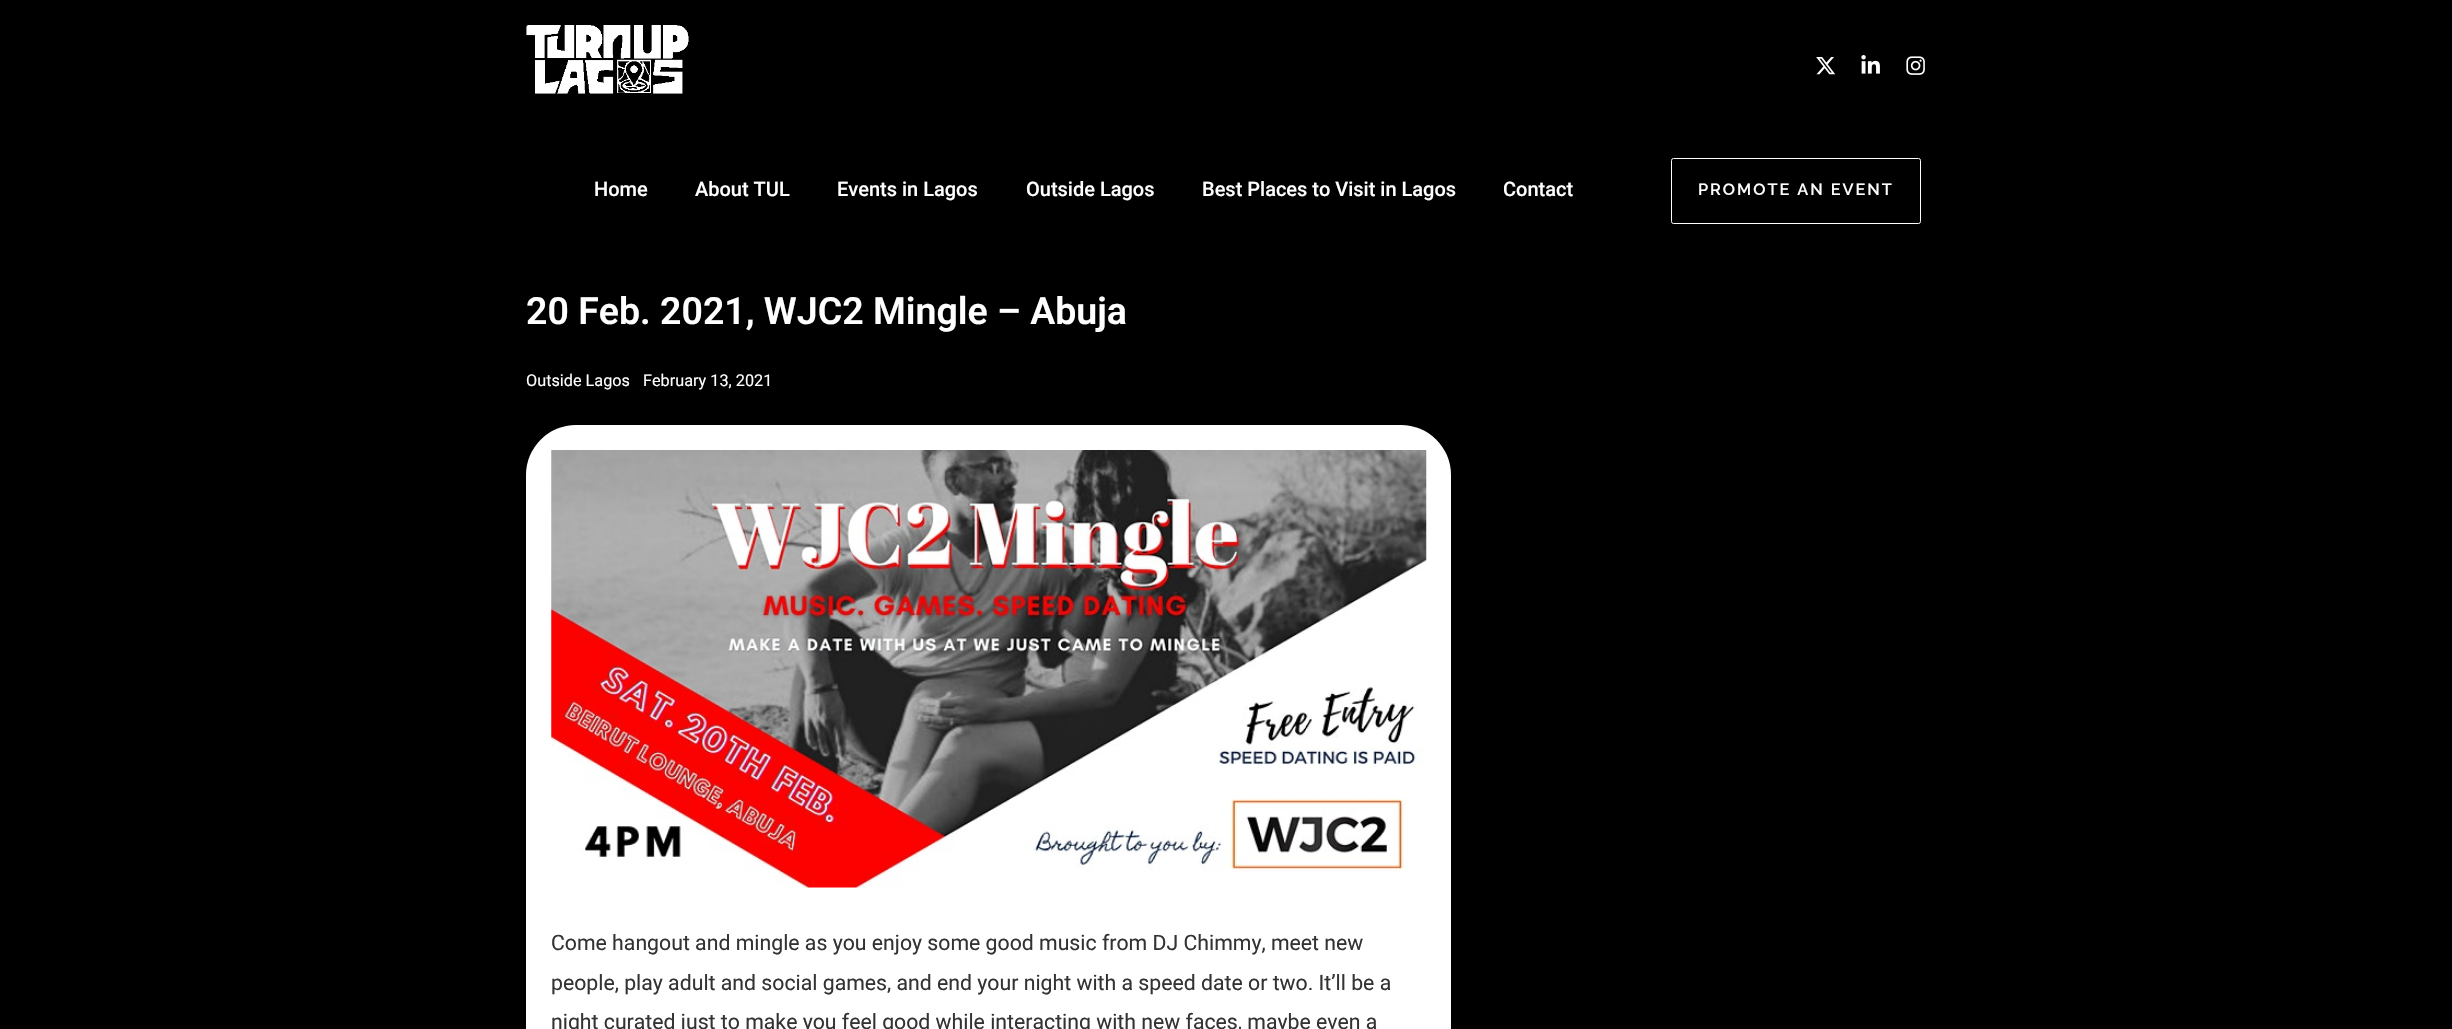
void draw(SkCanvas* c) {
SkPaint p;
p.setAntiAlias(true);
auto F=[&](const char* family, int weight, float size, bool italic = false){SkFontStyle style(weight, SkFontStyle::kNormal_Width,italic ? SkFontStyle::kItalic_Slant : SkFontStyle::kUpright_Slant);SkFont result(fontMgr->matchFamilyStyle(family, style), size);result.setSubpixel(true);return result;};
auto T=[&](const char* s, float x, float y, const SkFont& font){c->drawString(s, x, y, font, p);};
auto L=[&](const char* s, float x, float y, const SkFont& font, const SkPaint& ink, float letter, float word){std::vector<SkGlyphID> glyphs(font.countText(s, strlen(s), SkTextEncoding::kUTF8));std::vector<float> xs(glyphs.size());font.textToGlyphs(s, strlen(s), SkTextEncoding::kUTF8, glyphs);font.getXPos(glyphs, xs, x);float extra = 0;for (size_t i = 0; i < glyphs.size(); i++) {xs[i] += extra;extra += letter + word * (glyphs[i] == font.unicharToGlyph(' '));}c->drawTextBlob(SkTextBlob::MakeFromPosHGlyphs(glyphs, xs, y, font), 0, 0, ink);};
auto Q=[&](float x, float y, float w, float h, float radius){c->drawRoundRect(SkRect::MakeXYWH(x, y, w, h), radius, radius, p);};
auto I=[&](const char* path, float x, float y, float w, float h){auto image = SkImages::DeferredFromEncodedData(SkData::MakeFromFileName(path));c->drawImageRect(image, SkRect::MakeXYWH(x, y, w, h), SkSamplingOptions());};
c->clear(0xff000000);
I("1.png",526,25,163,69);
I("2.png",1816,57,20,18);
I("3.png",1861,55,19,19);
I("4.png",1906,56,19,19);
auto f1 = F("Roboto",500,20);
p.setColor(0xffffffff);
T("Home",594,196,f1);
T("About TUL",695,196,f1);
T("Events in Lagos",837,196,f1);
T("Outside Lagos",1026,196,f1);
T("Best Places to Visit in Lagos",1202,196,f1);
T("Contact",1503,196,f1);
p.setStroke(true);
p.setStrokeWidth(1);
c->drawRoundRect(SkRect::MakeXYWH(1671.5,158.5,249,65),2,2,p);
auto f2 = F("Raleway",600,16.25);
p.setStroke(false);
L("PROMOTE AN EVENT",1698,195,f2,p,2,0);
auto f3 = F("Roboto",600,37.5);
T("20 Feb. 2021, WJC2 Mingle – Abuja",526,324,f3);
auto f4 = F("Roboto",400,16.25);
T("Outside Lagos",526,386,f4);
T("February 13, 2021",643,386,f4);
Q(526,425,925,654,50);
I("5.png",551,450,876,438);
auto f5 = F("Roboto",400,21.25);
p.setColor(0xff333333);
T("Come hangout and mingle as you enjoy some good music from DJ Chimmy, meet new",551,950,f5);
T("people, play adult and social games, and end your night with a speed date or two. It’ll be a",551,990,f5);
T("night curated just to make you feel good while interacting with new faces, maybe even a",551,1029,f5);
}
